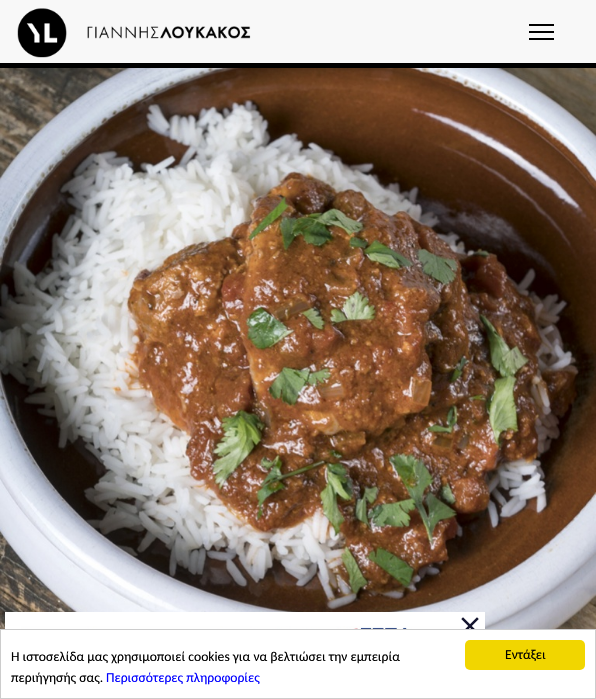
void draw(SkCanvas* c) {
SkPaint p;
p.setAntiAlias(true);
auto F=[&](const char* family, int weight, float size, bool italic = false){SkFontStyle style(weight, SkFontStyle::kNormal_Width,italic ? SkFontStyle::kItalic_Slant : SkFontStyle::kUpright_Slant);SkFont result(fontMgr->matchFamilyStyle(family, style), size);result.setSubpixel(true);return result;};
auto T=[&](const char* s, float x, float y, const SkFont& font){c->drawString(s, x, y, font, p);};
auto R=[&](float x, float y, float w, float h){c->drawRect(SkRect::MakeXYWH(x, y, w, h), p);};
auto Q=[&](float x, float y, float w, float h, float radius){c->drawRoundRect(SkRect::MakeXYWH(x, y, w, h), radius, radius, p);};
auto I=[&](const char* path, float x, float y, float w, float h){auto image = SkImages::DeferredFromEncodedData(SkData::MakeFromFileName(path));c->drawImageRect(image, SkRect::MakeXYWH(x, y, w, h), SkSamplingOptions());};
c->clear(0xfff8f8f8);
p.setColor(0xff000000);
R(0,63,596,5);
I("1.png",17,8,234,50);
R(529,24,25,2);
R(529,31,25,2);
R(529,38,25,2);
I("2.png",0,68,596,561);
p.setColor(0xffffffff);
R(5,612,480,17);
I("3.png",21,626,443,3);
I("4.png",461,617,18,12);
c->drawRect(SkRect::MakeXYWH(.5,629.5,595,69),p);
p.setStroke(true);
p.setStrokeWidth(1);
p.setColor(0xffcccccc);
c->drawRect(SkRect::MakeXYWH(.5,629.5,595,69),p);
auto f1 = F("Carlito",400,13.6);
p.setStroke(false);
p.setColor(0xff000000);
T("Η ιστοσελίδα μας χρησιμοποιεί cookies για να βελτιώσει την εμπειρία",11,661,f1);
T("περιήγησής σας.",11,682,f1);
p.setColor(0xff0000ff);
T("Περισσότερες πληροφορίες",106,682,f1);
p.setColor(0xfff1d600);
Q(465,640,120,30,5);
p.setColor(0xff000000);
T("Εντάξει",505,659,f1);
}
